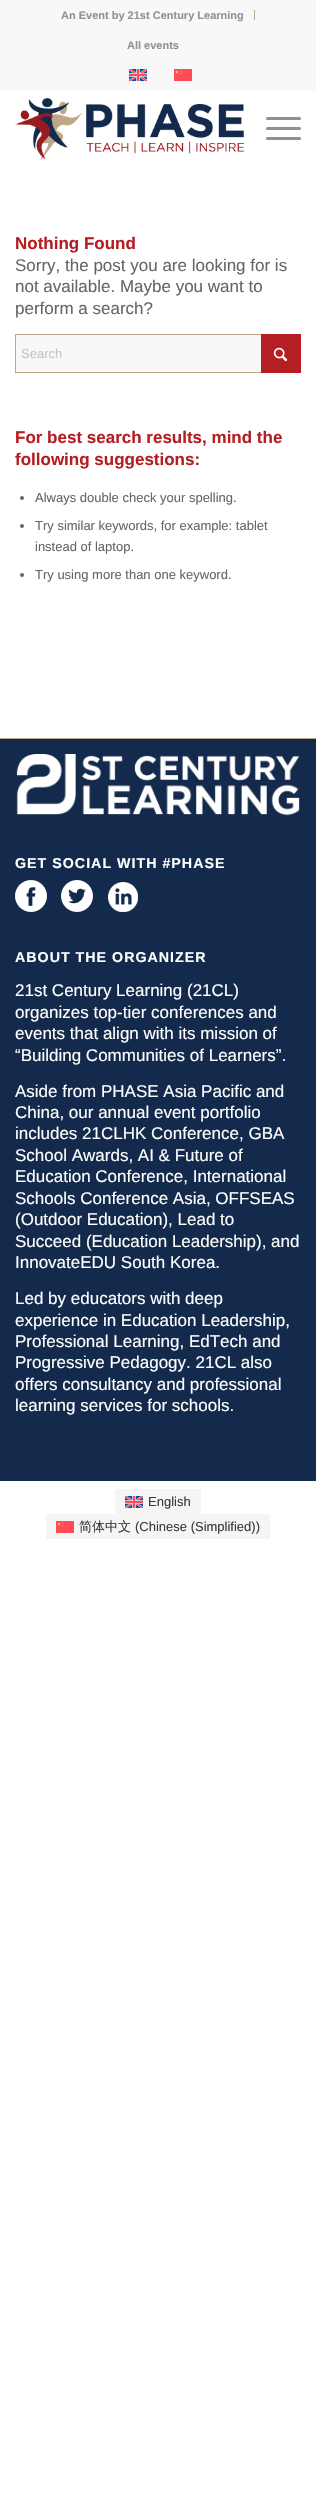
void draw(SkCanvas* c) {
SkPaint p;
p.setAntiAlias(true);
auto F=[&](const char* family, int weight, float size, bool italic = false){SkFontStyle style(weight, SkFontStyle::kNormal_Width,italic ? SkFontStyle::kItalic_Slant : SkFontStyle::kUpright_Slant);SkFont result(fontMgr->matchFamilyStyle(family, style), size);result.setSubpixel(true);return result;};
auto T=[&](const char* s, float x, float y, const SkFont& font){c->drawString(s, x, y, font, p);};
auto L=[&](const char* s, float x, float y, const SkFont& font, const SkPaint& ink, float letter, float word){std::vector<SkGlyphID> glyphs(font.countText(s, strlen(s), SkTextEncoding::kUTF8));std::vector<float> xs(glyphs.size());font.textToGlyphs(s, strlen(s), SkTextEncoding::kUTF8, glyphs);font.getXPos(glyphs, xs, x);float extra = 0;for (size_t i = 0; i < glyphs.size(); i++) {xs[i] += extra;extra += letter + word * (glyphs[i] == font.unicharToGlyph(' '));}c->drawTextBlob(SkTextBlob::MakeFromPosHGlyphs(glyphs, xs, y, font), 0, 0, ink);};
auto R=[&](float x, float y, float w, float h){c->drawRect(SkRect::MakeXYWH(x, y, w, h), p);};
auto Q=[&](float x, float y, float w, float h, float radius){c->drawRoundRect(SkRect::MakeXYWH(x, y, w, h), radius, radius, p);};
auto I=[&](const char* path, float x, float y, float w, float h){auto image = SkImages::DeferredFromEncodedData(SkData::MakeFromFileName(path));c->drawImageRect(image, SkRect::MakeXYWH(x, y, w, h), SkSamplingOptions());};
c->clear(0xffffffff);
p.setColor(0xfff8f8f8);
R(0,0,316,90);
p.setColor(0xffbca685);
R(254,10,1,10);
auto f1 = F("Liberation Sans",700,11);
p.setColor(0xff919191);
T("An Event by 21st Century Learning",61,19,f1);
T("All events",127,49,f1);
I("1.png",129,69,18,12);
I("2.png",174,69,18,12);
I("3.png",15,98,229,62);
Q(266,127,35,3,1.5);
Q(266,117,35,3,1.5);
Q(266,137,35,3,1.5);
auto f2 = F("Liberation Sans",700,17);
p.setColor(0xffb51f24);
T("Nothing Found",15,249,f2);
auto f3 = F("Liberation Sans",400,17);
p.setColor(0xff666666);
T("Sorry, the post you are looking for is",15,271,f3);
T("not available. Maybe you want to",15,292,f3);
T("perform a search?",15,314,f3);
p.setColor(0xfff8f8f8);
R(16,335,245,37);
p.setStroke(true);
p.setStrokeWidth(1);
p.setColor(0xffbca685);
c->drawRect(SkRect::MakeXYWH(15.5,334.5,285,38),p);
p.setStroke(false);
p.setColor(0xffb51f24);
R(261,334,40,39);
auto f4 = F("Liberation Sans",400,13);
p.setColor(0xffc5c5c5);
T("Search",21,358,f4);
I("4.png",273,347,15,15);
p.setColor(0xffb51f24);
T("For best search results, mind the",15,443,f2);
T("following suggestions:",15,465,f2);
p.setColor(0xff666666);
c->drawCircle(22,498,2,p);
T("Always double check your spelling.",35,502,f4);
c->drawCircle(22,526,2,p);
T("Try similar keywords, for example: tablet",35,530,f4);
T("instead of laptop.",35,551,f4);
c->drawCircle(22,575,2,p);
T("Try using more than one keyword.",35,579,f4);
p.setColor(0xff142a4c);
R(0,739,316,742);
p.setColor(0xffbca685);
R(0,738,316,1);
I("5.png",16,754,284,62);
auto f5 = F("Liberation Sans",700,14.25);
p.setColor(0xffffffff);
L("GET SOCIAL WITH #PHASE",15,868,f5,p,1,0);
I("6.png",15,880,32,32);
I("7.png",61,880,32,32);
I("8.png",108,882,30,30);
L("ABOUT THE ORGANIZER",15,962,f5,p,1,0);
T("21st Century Learning (21CL)",15,996,f3);
T("organizes top-tier conferences and",15,1018,f3);
T("events that align with its mission of",15,1039,f3);
T("“Building Communities of Learners”.",15,1061,f3);
T("Aside from PHASE Asia Pacific and",15,1097,f3);
T("China, our annual event portfolio",15,1118,f3);
T("includes 21CLHK Conference, GBA",15,1139,f3);
T("School Awards, AI & Future of",15,1161,f3);
T("Education Conference, International",15,1182,f3);
T("Schools Conference Asia, OFFSEAS",15,1204,f3);
T("(Outdoor Education), Lead to",15,1225,f3);
T("Succeed (Education Leadership), and",15,1247,f3);
T("InnovateEDU South Korea.",15,1268,f3);
T("Led by educators with deep",15,1304,f3);
T("experience in Education Leadership,",15,1326,f3);
T("Professional Learning, EdTech and",15,1347,f3);
T("Progressive Pedagogy. 21CL also",15,1368,f3);
T("offers consultancy and professional",15,1390,f3);
T("learning services for schools.",15,1411,f3);
p.setColor(0xfff5f5f5);
R(115,1489,86,25);
I("1.png",125,1496,18,12);
p.setColor(0xff393939);
T("English",148,1506,f4);
p.setColor(0xfff5f5f5);
R(46,1514,224,25);
I("2.png",56,1521,18,12);
auto f6 = F("WenQuanYi Zen Hei",500,13);
p.setColor(0xff393939);
T("简体中文",79,1531,f6);
T("(Chinese (Simplified))",135,1531,f4);
}
